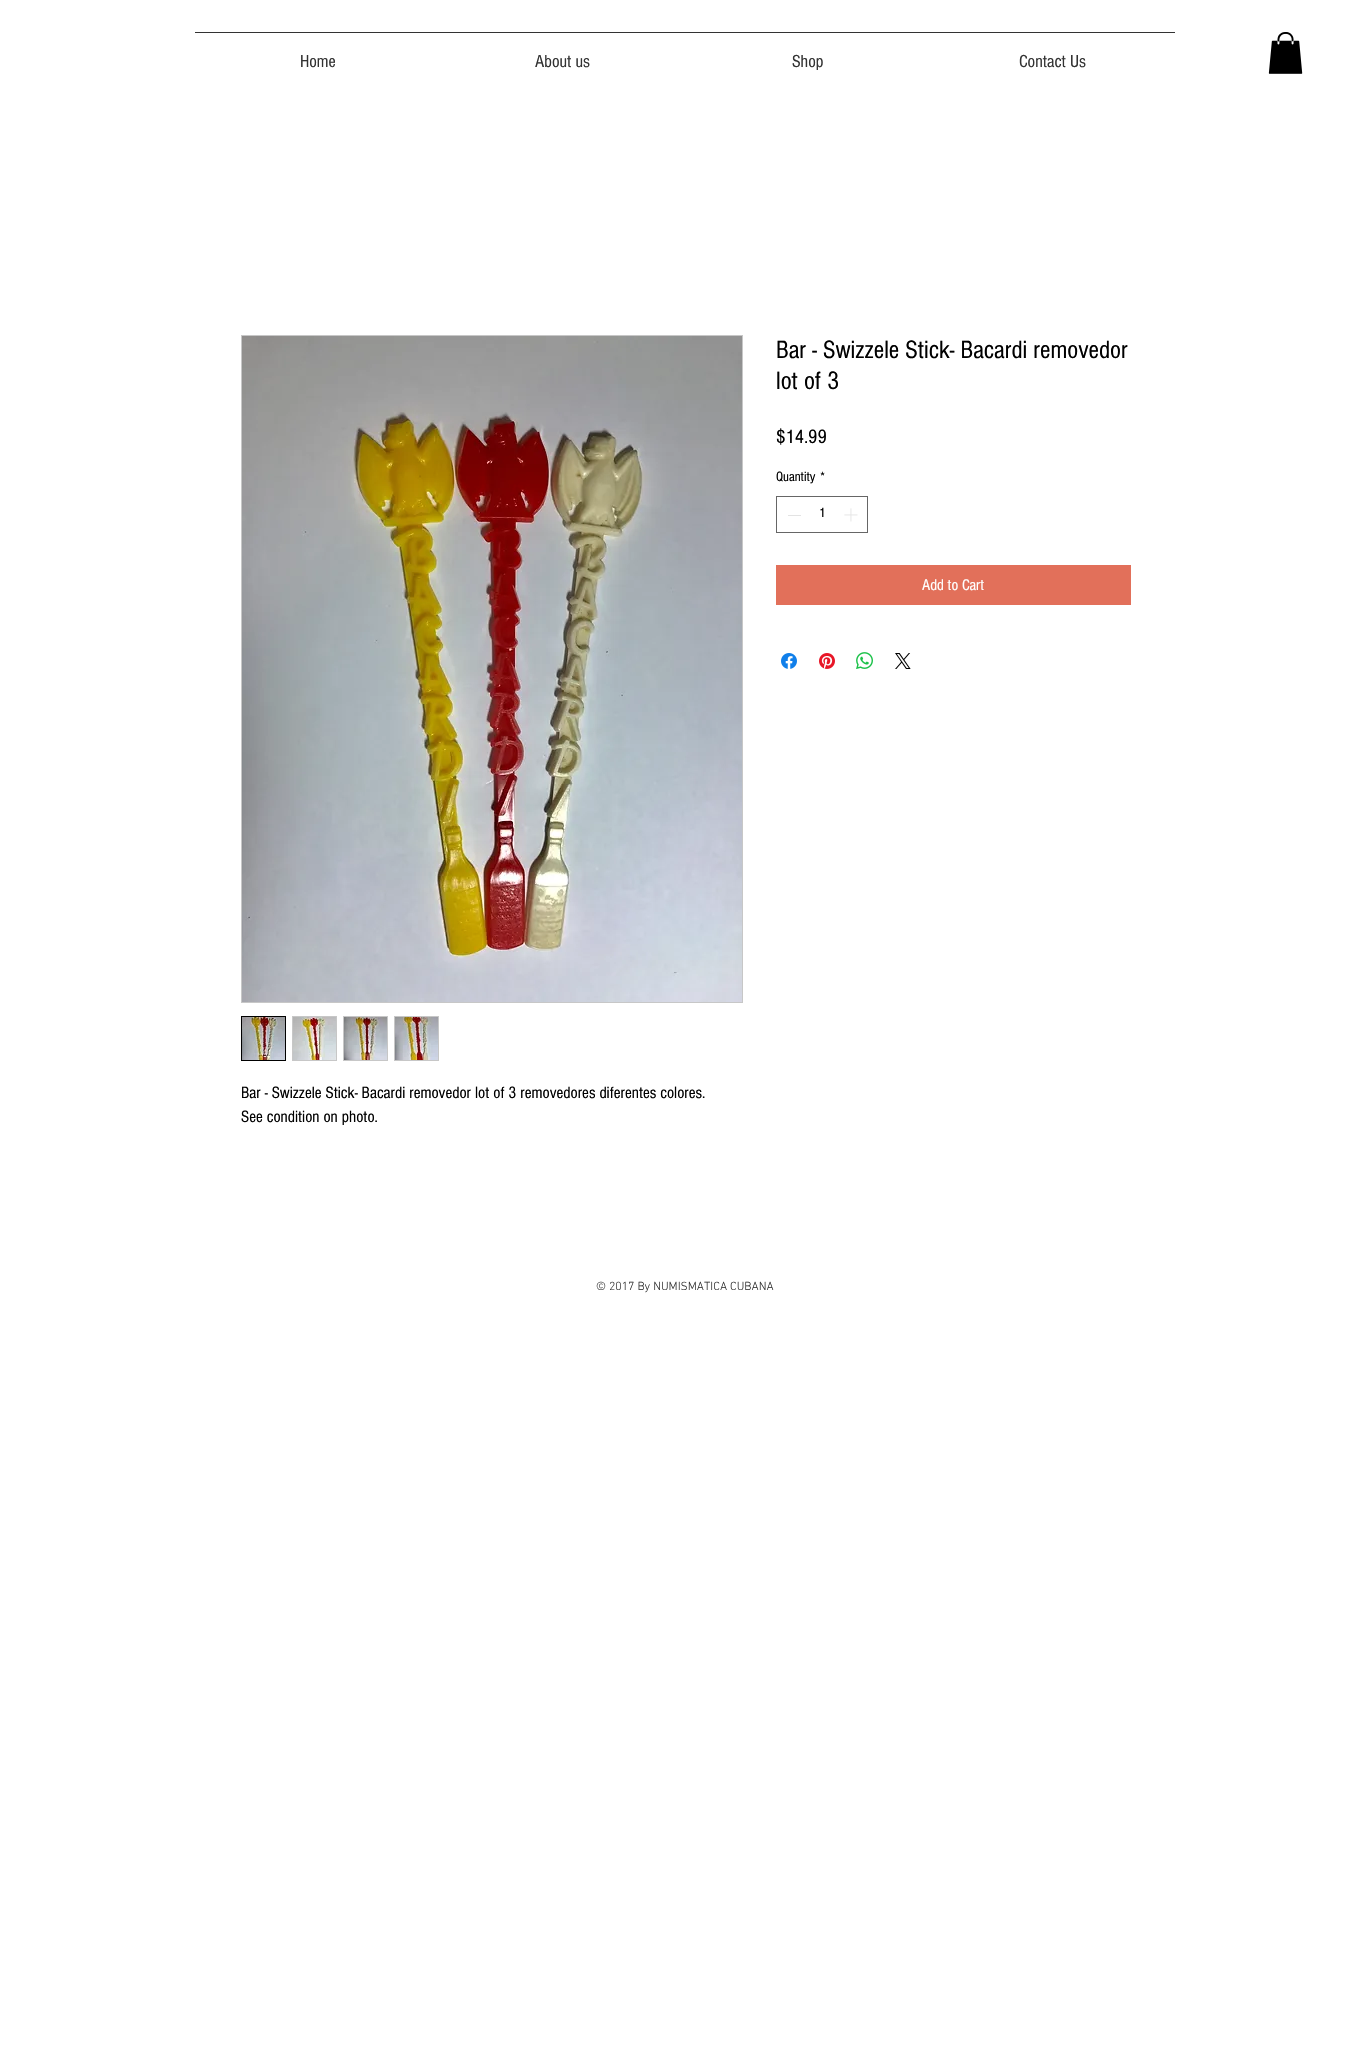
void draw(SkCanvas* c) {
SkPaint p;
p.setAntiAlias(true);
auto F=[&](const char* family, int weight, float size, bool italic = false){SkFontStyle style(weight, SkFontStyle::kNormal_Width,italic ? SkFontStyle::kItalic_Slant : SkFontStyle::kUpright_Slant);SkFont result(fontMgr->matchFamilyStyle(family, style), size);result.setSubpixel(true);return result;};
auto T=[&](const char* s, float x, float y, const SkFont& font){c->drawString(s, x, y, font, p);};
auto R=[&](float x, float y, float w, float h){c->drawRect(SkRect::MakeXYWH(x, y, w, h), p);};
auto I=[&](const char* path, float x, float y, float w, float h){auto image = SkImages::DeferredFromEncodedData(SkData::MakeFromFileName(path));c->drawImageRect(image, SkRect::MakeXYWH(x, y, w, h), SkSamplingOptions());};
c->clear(0xffffffff);
p.setColor(0xff333333);
R(195,32,980,1);
auto f1 = F("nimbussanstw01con",400,18);
T("Home",300,67,f1);
T("About us",535,67,f1);
T("Shop",792,67,f1);
T("Contact Us",1019,67,f1);
I("1.png",1268,32,35,42);
auto f2 = F("nimbussanstw01con",400,26);
p.setColor(0xff000000);
T("Bar - Swizzele Stick- Bacardi removedor",776,358,f2);
T("lot of 3",776,389,f2);
auto f3 = F("nimbussanstw01con",400,20);
T("$14.99",776,443,f3);
auto f4 = F("nimbussanstw01con",400,14);
T("Quantity",776,481,f4);
T("*",820,481,f4);
p.setStroke(true);
p.setStrokeWidth(1);
p.setColor(0xff666666);
c->drawRect(SkRect::MakeXYWH(776.5,496.5,91,36),p);
p.setStroke(false);
p.setColor(0xffe3e3e3);
R(788,515,13,1);
p.setColor(0xff000000);
T("1",819,517,f4);
I("2.png",844,508,14,14);
p.setColor(0xffe2705a);
R(776,565,355,40);
auto f5 = F("nimbussanstw01con",400,16);
p.setColor(0xffffffff);
T("Add to Cart",922,590,f5);
I("3.png",781,653,16,16);
I("4.png",819,653,16,16);
I("5.png",856,652,17,17);
I("6.png",895,653,16,16);
p.setStroke(true);
p.setColor(0xffc7c7c7);
c->drawRect(SkRect::MakeXYWH(241.5,335.5,501,667),p);
I("7.png",242,336,500,666);
p.setColor(0xff000000);
c->drawRect(SkRect::MakeXYWH(241.5,1016.5,44,44),p);
I("8.png",242,1017,43,43);
p.setStroke(false);
p.setColor(0xffc7c7c7);
R(292,1016,45,45);
I("9.png",293,1017,43,43);
R(343,1016,45,45);
I("10.png",344,1017,43,43);
R(394,1016,45,45);
I("11.png",395,1017,43,43);
auto f6 = F("nimbussanstw01con",400,17);
p.setColor(0xff000000);
T("Bar - Swizzele Stick- Bacardi removedor lot of 3 removedores diferentes colores.",241,1098,f6);
T("See condition on photo.",241,1122,f6);
auto f7 = F("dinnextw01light",300,12);
p.setColor(0xff333333);
T("© 2017 By NUMISMATICA CUBANA",596,1290,f7);
}
